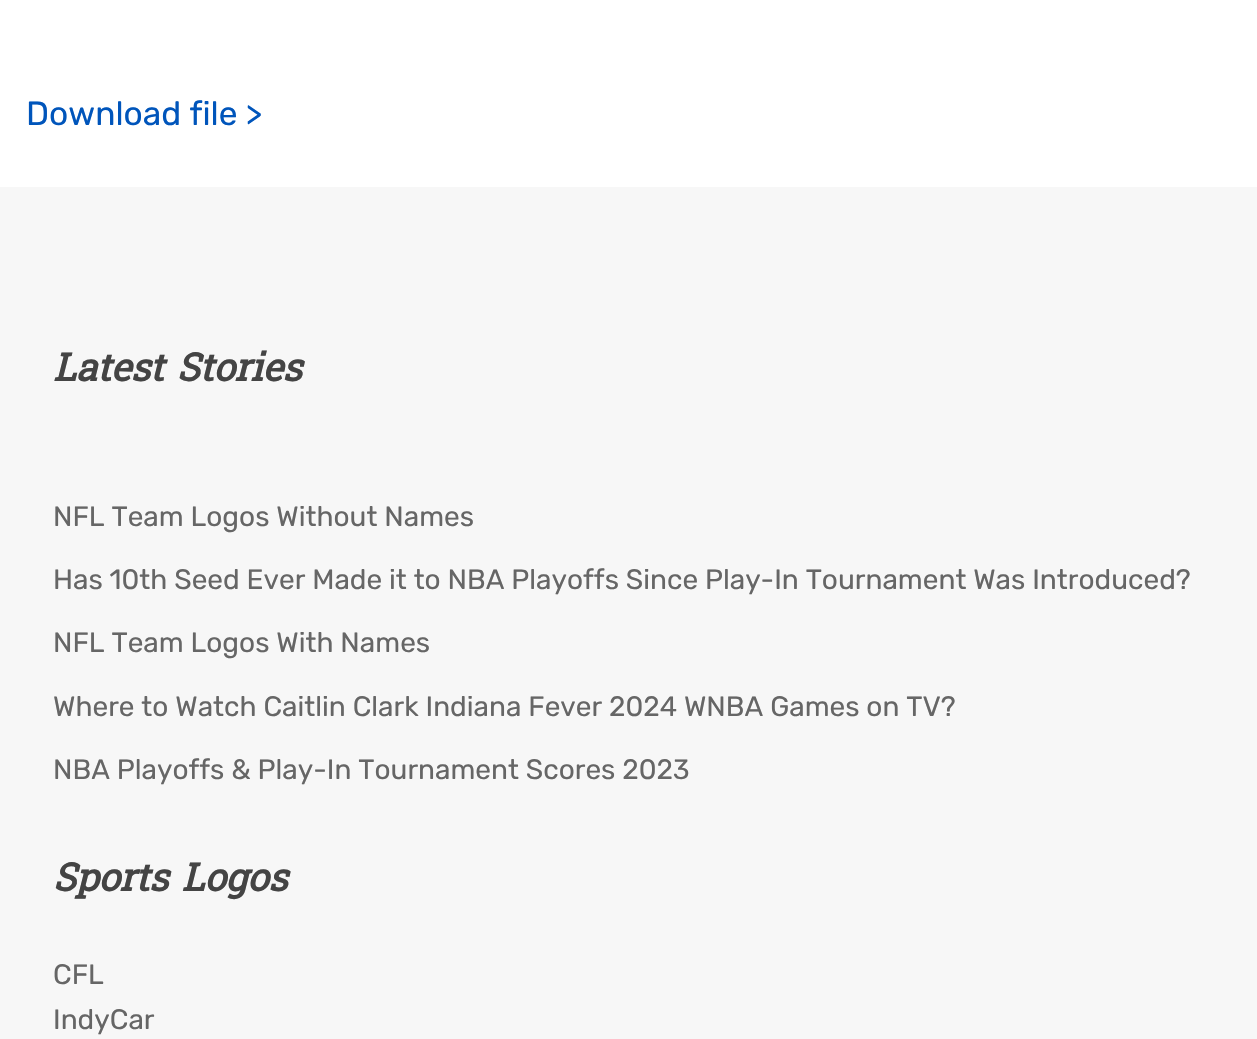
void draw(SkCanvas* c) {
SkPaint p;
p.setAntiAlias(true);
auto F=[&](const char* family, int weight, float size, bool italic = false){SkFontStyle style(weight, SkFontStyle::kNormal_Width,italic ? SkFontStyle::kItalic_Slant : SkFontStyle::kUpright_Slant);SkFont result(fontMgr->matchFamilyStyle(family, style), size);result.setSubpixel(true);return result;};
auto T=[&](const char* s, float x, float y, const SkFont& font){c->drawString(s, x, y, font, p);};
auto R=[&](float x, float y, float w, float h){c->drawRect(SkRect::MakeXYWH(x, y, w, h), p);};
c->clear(0xffffffff);
auto f1 = F("Rubik",300,33.5);
p.setColor(0xff0055bb);
T("Download file >",26,125,f1);
p.setColor(0xfff7f7f7);
R(0,187,1257,852);
auto f2 = F("Hanuman",700,38.5,true);
p.setColor(0xff444444);
T("Latest Stories",53,381,f2);
auto f3 = F("Rubik",300,28);
p.setColor(0xff666666);
T("NFL Team Logos Without Names",53,526,f3);
T("Has 10th Seed Ever Made it to NBA Playoffs Since Play-In Tournament Was Introduced?",53,589,f3);
T("NFL Team Logos With Names",53,652,f3);
T("Where to Watch Caitlin Clark Indiana Fever 2024 WNBA Games on TV?",53,716,f3);
T("NBA Playoffs & Play-In Tournament Scores 2023",53,779,f3);
p.setColor(0xff444444);
T("Sports Logos",53,891,f2);
p.setColor(0xff666666);
T("CFL",53,984,f3);
T("IndyCar",53,1029,f3);
}
